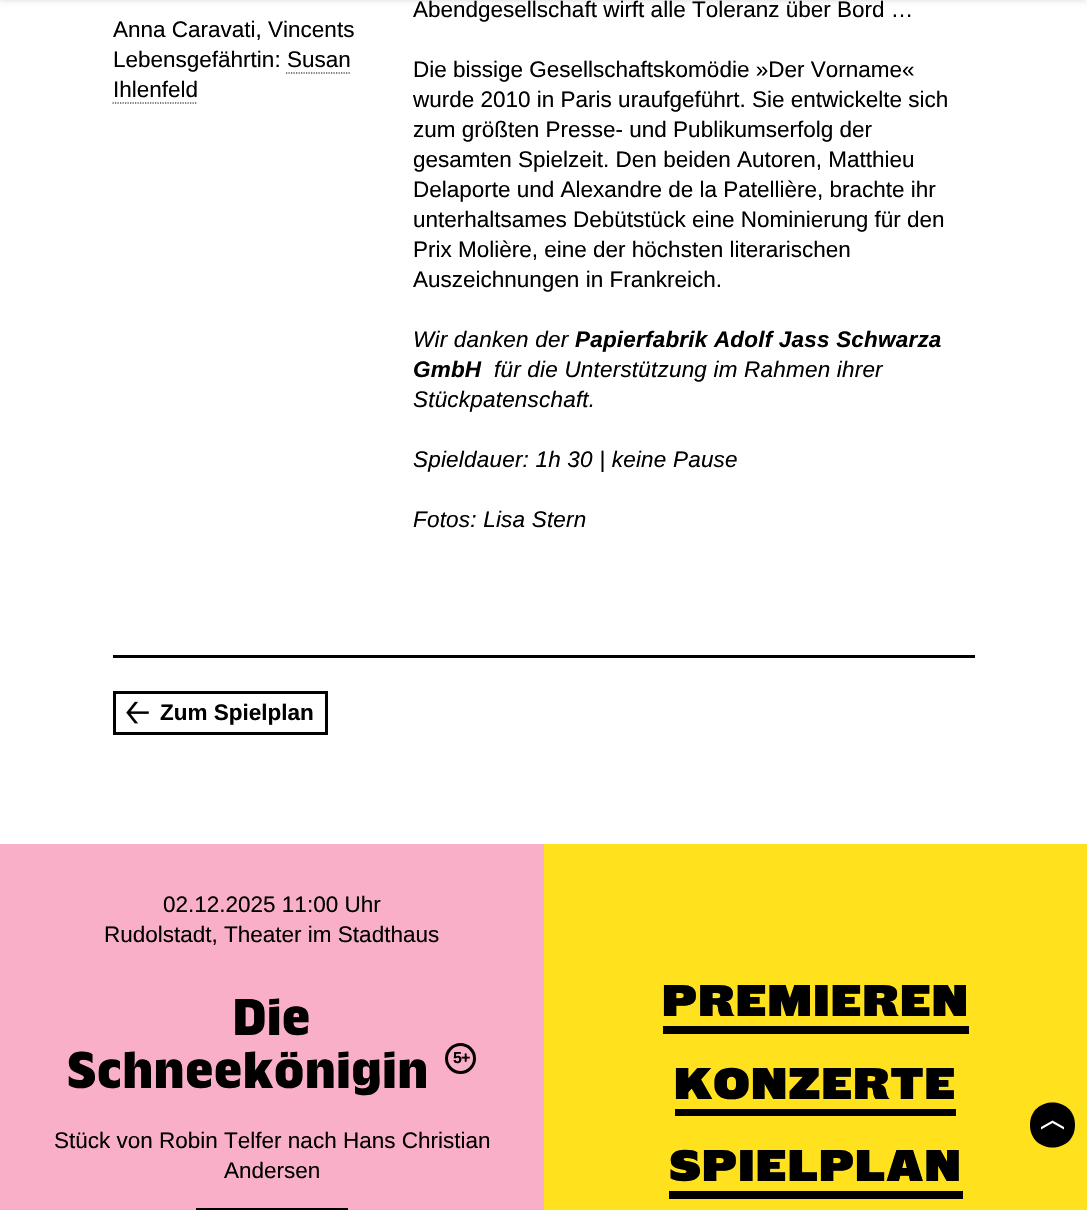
void draw(SkCanvas* c) {
SkPaint p;
p.setAntiAlias(true);
auto F=[&](const char* family, int weight, float size, bool italic = false){SkFontStyle style(weight, SkFontStyle::kNormal_Width,italic ? SkFontStyle::kItalic_Slant : SkFontStyle::kUpright_Slant);SkFont result(fontMgr->matchFamilyStyle(family, style), size);result.setSubpixel(true);return result;};
auto T=[&](const char* s, float x, float y, const SkFont& font){c->drawString(s, x, y, font, p);};
auto L=[&](const char* s, float x, float y, const SkFont& font, const SkPaint& ink, float letter, float word){std::vector<SkGlyphID> glyphs(font.countText(s, strlen(s), SkTextEncoding::kUTF8));std::vector<float> xs(glyphs.size());font.textToGlyphs(s, strlen(s), SkTextEncoding::kUTF8, glyphs);font.getXPos(glyphs, xs, x);float extra = 0;for (size_t i = 0; i < glyphs.size(); i++) {xs[i] += extra;extra += letter + word * (glyphs[i] == font.unicharToGlyph(' '));}c->drawTextBlob(SkTextBlob::MakeFromPosHGlyphs(glyphs, xs, y, font), 0, 0, ink);};
auto R=[&](float x, float y, float w, float h){c->drawRect(SkRect::MakeXYWH(x, y, w, h), p);};
auto I=[&](const char* path, float x, float y, float w, float h){auto image = SkImages::DeferredFromEncodedData(SkData::MakeFromFileName(path));c->drawImageRect(image, SkRect::MakeXYWH(x, y, w, h), SkSamplingOptions());};
auto P=[&](const char* data, bool evenOdd = false){SkPath result = *SkParsePath::FromSVGString(data);if (evenOdd) result.setFillType(SkPathFillType::kEvenOdd);return result;};
c->clear(0xffffffff);
p.setColor(0x26000000);
p.setMaskFilter(SkMaskFilter::MakeBlur(kNormal_SkBlurStyle, 3));
c->drawRect(SkRect::MakeXYWH(0,-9,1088,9),p);
p.setMaskFilter(nullptr);
auto f1 = F("Liberation Sans",400,22.5);
p.setColor(0xff000000);
T("Anna Caravati, Vincents",113,37,f1);
T("Lebensgefährtin: Susan",113,67,f1);
T("Ihlenfeld",113,97,f1);
p.setStroke(true);
p.setStrokeWidth(1.2);
p.setPathEffect(SkDashPathEffect::Make({{1.25f,1.25f}}, 0));
c->drawPath(P("M286 73h64"),p);
p.setPathEffect(nullptr);
p.setPathEffect(SkDashPathEffect::Make({{1.25f,1.25f}}, 0));
c->drawPath(P("M112.5 103h85"),p);
p.setPathEffect(nullptr);
p.setStroke(false);
T("Abendgesellschaft wirft alle Toleranz über Bord …",413,17,f1);
T("Die bissige Gesellschaftskomödie »Der Vorname«",413,77,f1);
T("wurde 2010 in Paris uraufgeführt. Sie entwickelte sich",413,107,f1);
T("zum größten Presse- und Publikumserfolg der",413,137,f1);
T("gesamten Spielzeit. Den beiden Autoren, Matthieu",413,167,f1);
T("Delaporte und Alexandre de la Patellière, brachte ihr",413,197,f1);
T("unterhaltsames Debütstück eine Nominierung für den",413,227,f1);
T("Prix Molière, eine der höchsten literarischen",413,257,f1);
T("Auszeichnungen in Frankreich.",413,287,f1);
auto f2 = F("Liberation Sans",400,22.5,true);
L("Wir danken der",413,347,f2,p,.2,0);
auto f3 = F("Liberation Sans",700,22.5,true);
L("Papierfabrik Adolf Jass Schwarza",575,347,f3,p,.2,0);
L("GmbH",413,377,f3,p,.2,0);
L("für die Unterstützung im Rahmen ihrer",494,377,f2,p,.2,0);
L("Stückpatenschaft.",413,407,f2,p,.2,0);
L("Spieldauer: 1h 30 | keine Pause",413,467,f2,p,.2,0);
L("Fotos: Lisa Stern",413,527,f2,p,.2,0);
R(113,655,862,3);
I("1.png",126,701,23,23);
p.setStroke(true);
p.setStrokeWidth(3);
c->drawRect(SkRect::MakeXYWH(114.5,692.5,212,41),p);
auto f4 = F("Liberation Sans",700,22.5);
p.setStroke(false);
T("Zum Spielplan",160,720,f4);
p.setColor(0xfffaafc8);
R(0,844,544,366);
p.setColor(0xff000000);
T("02.12.2025 11:00 Uhr",163,912,f1);
T("Rudolstadt, Theater im Stadthaus",104,942,f1);
auto f5 = F("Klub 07",700,52.5);
L("Die",233,1035,f5,p,1.25,0);
L("Schneekönigin",67,1088,f5,p,1.25,0);
p.setStroke(true);
c->drawCircle(460.5,1058.5,14,p);
auto f6 = F("Liberation Sans",700,16);
p.setStroke(false);
L("5+",453,1063,f6,p,-1,0);
T("Stück von Robin Telfer nach Hans Christian",54,1148,f1);
T("Andersen",224,1178,f1);
R(196,1208,152,2);
p.setColor(0xffffe11e);
R(544,844,543,366);
auto f7 = F("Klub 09",900,45);
p.setColor(0xff000000);
L("PREMIEREN",662,1016,f7,p,1.25,0);
R(663,1026,306,8);
L("KONZERTE",674,1099,f7,p,1.25,0);
R(675,1109,281,7);
L("SPIELPLAN",669,1181,f7,p,1.25,0);
R(669,1191,294,8);
c->drawPath(P("M1075 1125c0 30-45 30-45 0c0-30 45-30 45 0z"),p);
p.setColor(0xffffffff);
c->drawPath(P("M1052.5 1123l-11.5 6.5v-2.5l11.5-6.5l11.5 6.5v2.5z"),p);
}
